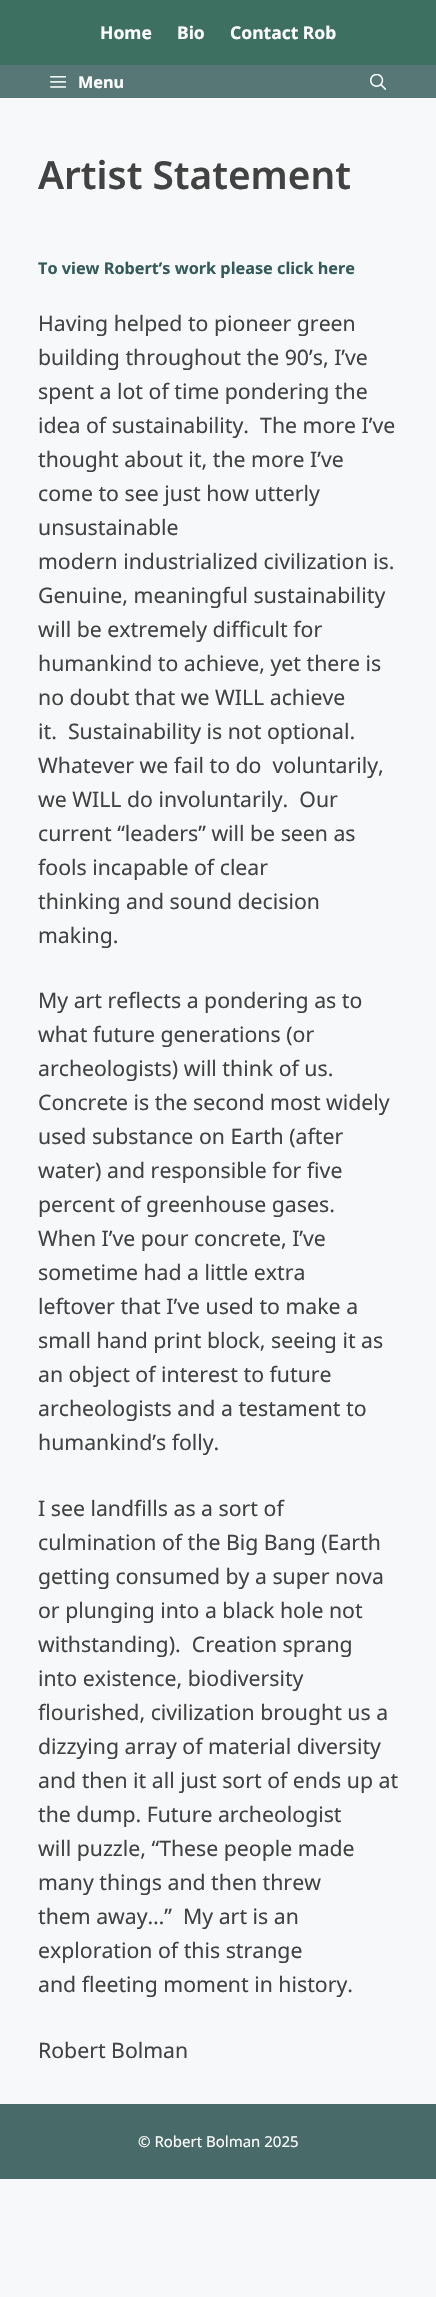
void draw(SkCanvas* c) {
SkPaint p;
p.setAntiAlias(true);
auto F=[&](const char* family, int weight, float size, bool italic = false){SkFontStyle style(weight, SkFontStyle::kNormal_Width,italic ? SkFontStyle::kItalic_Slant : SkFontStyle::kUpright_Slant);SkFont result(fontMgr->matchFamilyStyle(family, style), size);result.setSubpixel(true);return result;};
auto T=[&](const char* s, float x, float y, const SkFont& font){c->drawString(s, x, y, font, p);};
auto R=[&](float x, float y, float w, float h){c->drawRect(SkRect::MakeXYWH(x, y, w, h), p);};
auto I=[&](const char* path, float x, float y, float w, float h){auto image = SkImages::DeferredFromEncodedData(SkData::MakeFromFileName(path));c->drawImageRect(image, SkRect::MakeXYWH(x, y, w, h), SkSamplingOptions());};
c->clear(0xfff7f8f9);
p.setColor(0xff3e7062);
R(0,0,436,65);
auto f1 = F("Noto Sans",700,17.5);
p.setColor(0xffffffff);
T("Home",100,39,f1);
T("Bio",177,39,f1);
T("Contact Rob",230,39,f1);
p.setColor(0xff577777);
R(0,65,436,33);
I("1.png",50,76,16,12);
auto f2 = F("Noto Sans",700,16.25);
p.setColor(0xffffffff);
T("Menu",78,88,f2);
I("2.png",370,74,16,16);
auto f3 = F("Noto Sans",600,38.75);
p.setColor(0xff424242);
T("Artist Statement",38,189,f3);
p.setColor(0xff345b5a);
T("To view Robert’s work please click here",38,274,f2);
auto f4 = F("Noto Sans",400,21.25);
p.setColor(0xff424242);
T("Having helped to pioneer green",38,331,f4);
T("building throughout the 90’s, I’ve",38,365,f4);
T("spent a lot of time pondering the",38,399,f4);
T("idea of sustainability.  The more I’ve",38,433,f4);
T("thought about it, the more I’ve",38,467,f4);
T("come to see just how utterly",38,501,f4);
T("unsustainable",38,535,f4);
T("modern industrialized civilization is.",38,569,f4);
T("Genuine, meaningful sustainability",38,603,f4);
T("will be extremely difficult for",38,637,f4);
T("humankind to achieve, yet there is",38,671,f4);
T("no doubt that we WILL achieve",38,705,f4);
T("it.  Sustainability is not optional.",38,739,f4);
T("Whatever we fail to do  voluntarily,",38,773,f4);
T("we WILL do involuntarily.  Our",38,807,f4);
T("current “leaders” will be seen as",38,841,f4);
T("fools incapable of clear",38,875,f4);
T("thinking and sound decision",38,909,f4);
T("making.",38,943,f4);
T("My art reflects a pondering as to",38,1008,f4);
T("what future generations (or",38,1042,f4);
T("archeologists) will think of us.",38,1076,f4);
T("Concrete is the second most widely",38,1110,f4);
T("used substance on Earth (after",38,1144,f4);
T("water) and responsible for five",38,1178,f4);
T("percent of greenhouse gases.",38,1212,f4);
T("When I’ve pour concrete, I’ve",38,1246,f4);
T("sometime had a little extra",38,1280,f4);
T("leftover that I’ve used to make a",38,1314,f4);
T("small hand print block, seeing it as",38,1348,f4);
T("an object of interest to future",38,1382,f4);
T("archeologists and a testament to",38,1416,f4);
T("humankind’s folly.",38,1450,f4);
T("I see landfills as a sort of",38,1516,f4);
T("culmination of the Big Bang (Earth",38,1550,f4);
T("getting consumed by a super nova",38,1584,f4);
T("or plunging into a black hole not",38,1618,f4);
T("withstanding).  Creation sprang",38,1652,f4);
T("into existence, biodiversity",38,1686,f4);
T("flourished, civilization brought us a",38,1720,f4);
T("dizzying array of material diversity",38,1754,f4);
T("and then it all just sort of ends up at",38,1788,f4);
T("the dump. Future archeologist",38,1822,f4);
T("will puzzle, “These people made",38,1856,f4);
T("many things and then threw",38,1890,f4);
T("them away…”  My art is an",38,1924,f4);
T("exploration of this strange",38,1958,f4);
T("and fleeting moment in history.",38,1992,f4);
T("Robert Bolman",38,2058,f4);
p.setColor(0xff486b6a);
R(0,2104,436,75);
auto f5 = F("Noto Sans",400,15);
p.setColor(0xffffffff);
T("© Robert Bolman 2025",138,2147,f5);
}
